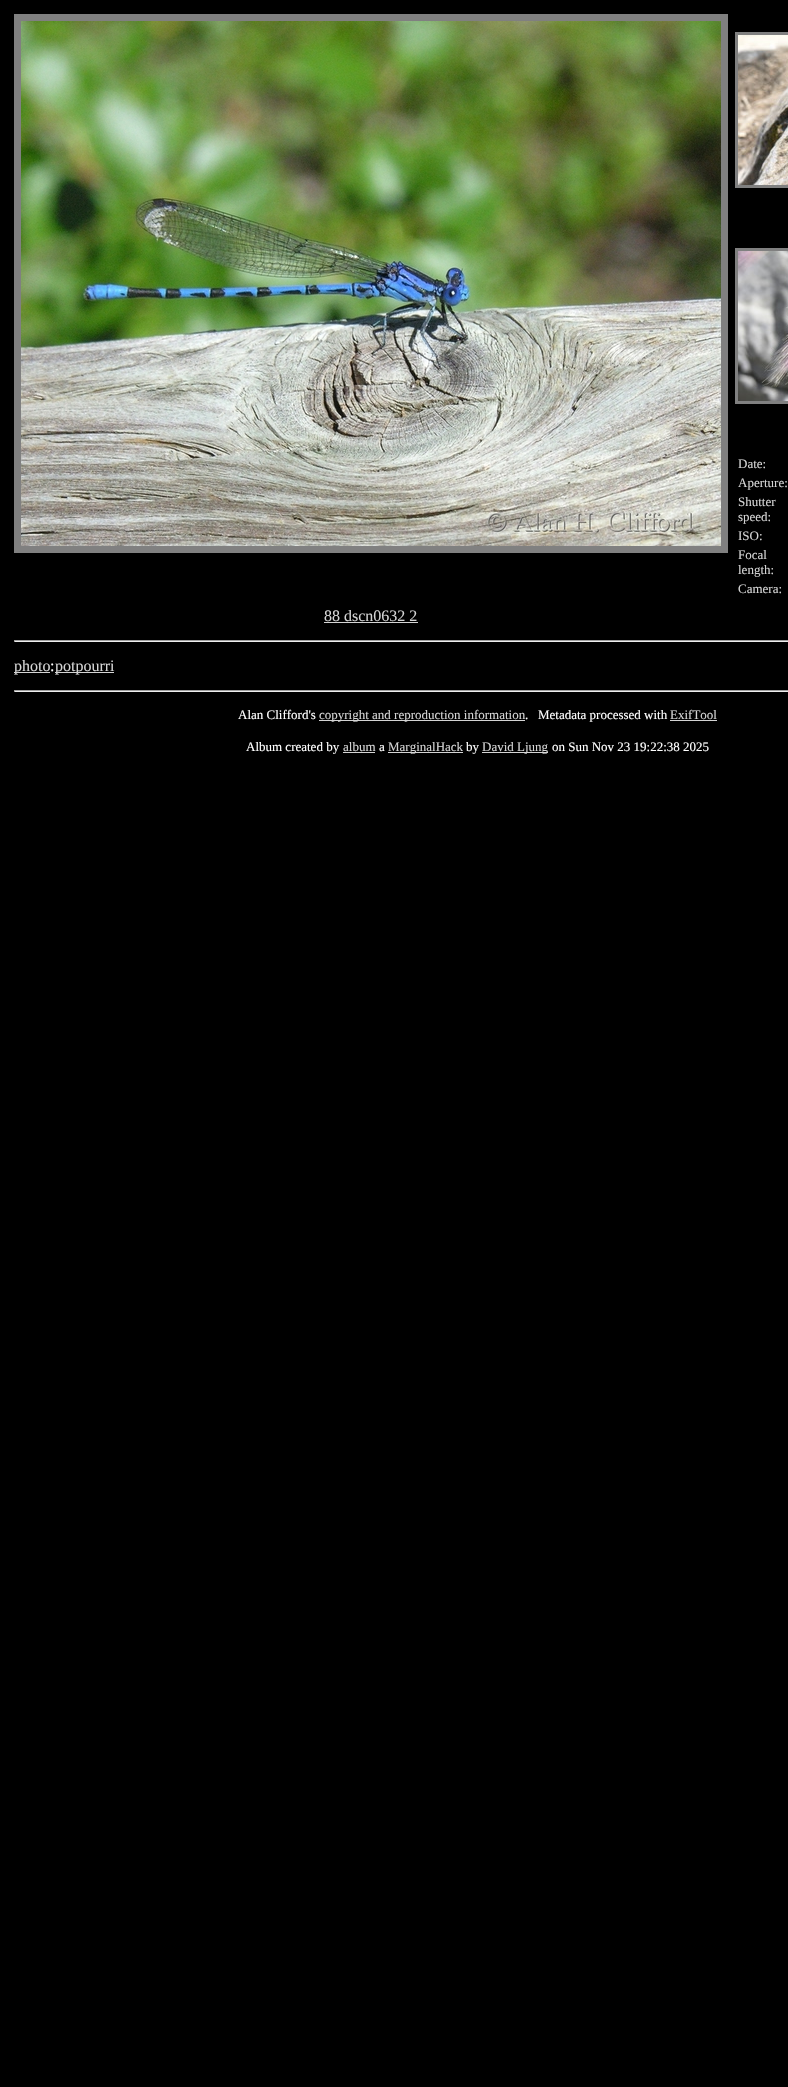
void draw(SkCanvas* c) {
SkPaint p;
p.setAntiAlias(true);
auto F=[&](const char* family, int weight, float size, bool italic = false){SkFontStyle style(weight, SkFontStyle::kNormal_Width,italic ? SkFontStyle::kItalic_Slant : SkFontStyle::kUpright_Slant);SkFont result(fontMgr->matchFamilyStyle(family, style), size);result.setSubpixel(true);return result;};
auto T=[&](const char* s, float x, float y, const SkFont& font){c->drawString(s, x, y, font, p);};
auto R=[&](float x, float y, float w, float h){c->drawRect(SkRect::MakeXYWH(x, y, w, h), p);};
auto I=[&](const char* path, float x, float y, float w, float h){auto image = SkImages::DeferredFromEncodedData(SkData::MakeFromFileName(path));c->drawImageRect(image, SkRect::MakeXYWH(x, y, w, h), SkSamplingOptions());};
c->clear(0xff000000);
p.setColor(0xff808080);
R(735,248,53,156);
I("1.png",738,251,50,150);
auto f1 = F("Liberation Serif",400,13);
p.setColor(0xffd4d4d4);
T("Date:",738,468,f1);
T("Aperture:",738,487,f1);
T("Shutter",738,506,f1);
T("speed:",738,521,f1);
T("ISO:",738,540,f1);
T("Focal",738,559,f1);
T("length:",738,574,f1);
T("Camera:",738,593,f1);
p.setColor(0xff808080);
R(735,32,53,156);
I("2.png",738,35,50,150);
R(14,14,714,539);
I("3.png",21,21,700,525);
auto f2 = F("Liberation Serif",400,16);
p.setColor(0xffd4d4d4);
T("88 dscn0632 2",324,621,f2);
R(324,622,94,1);
p.setColor(0xff9f9f9f);
R(14,640,774,1);
p.setColor(0xffeeeeee);
R(14,641,774,1);
p.setColor(0xff9f9f9f);
R(14,640,1,2);
p.setColor(0xffd4d4d4);
R(14,672,36,1);
T("photo",14,671,f2);
p.setColor(0xffffffff);
T(":",50,671,f2);
p.setColor(0xffd4d4d4);
R(55,672,59,1);
T("potpourri",55,671,f2);
p.setColor(0xff9f9f9f);
R(14,690,774,1);
p.setColor(0xffeeeeee);
R(14,691,774,1);
p.setColor(0xff9f9f9f);
R(14,690,1,2);
p.setColor(0xffffffff);
T("Alan Clifford's",238,719,f1);
p.setColor(0xffd4d4d4);
R(319,720,206,1);
T("copyright and reproduction information",319,719,f1);
p.setColor(0xffffffff);
T(".",525,719,f1);
T("Metadata processed with",538,719,f1);
p.setColor(0xffd4d4d4);
R(670,720,47,1);
T("ExifTool",670,719,f1);
p.setColor(0xffffffff);
T("Album created by",246,751,f1);
p.setColor(0xffd4d4d4);
T("album",343,751,f1);
R(343,752,32,1);
p.setColor(0xffffffff);
T("a",379,751,f1);
p.setColor(0xffd4d4d4);
R(388,752,75,1);
T("MarginalHack",388,751,f1);
p.setColor(0xffffffff);
T("by",466,751,f1);
p.setColor(0xffd4d4d4);
R(482,752,66,1);
T("David Ljung",482,751,f1);
p.setColor(0xffffffff);
T("on Sun Nov 23 19:22:38 2025",552,751,f1);
}
